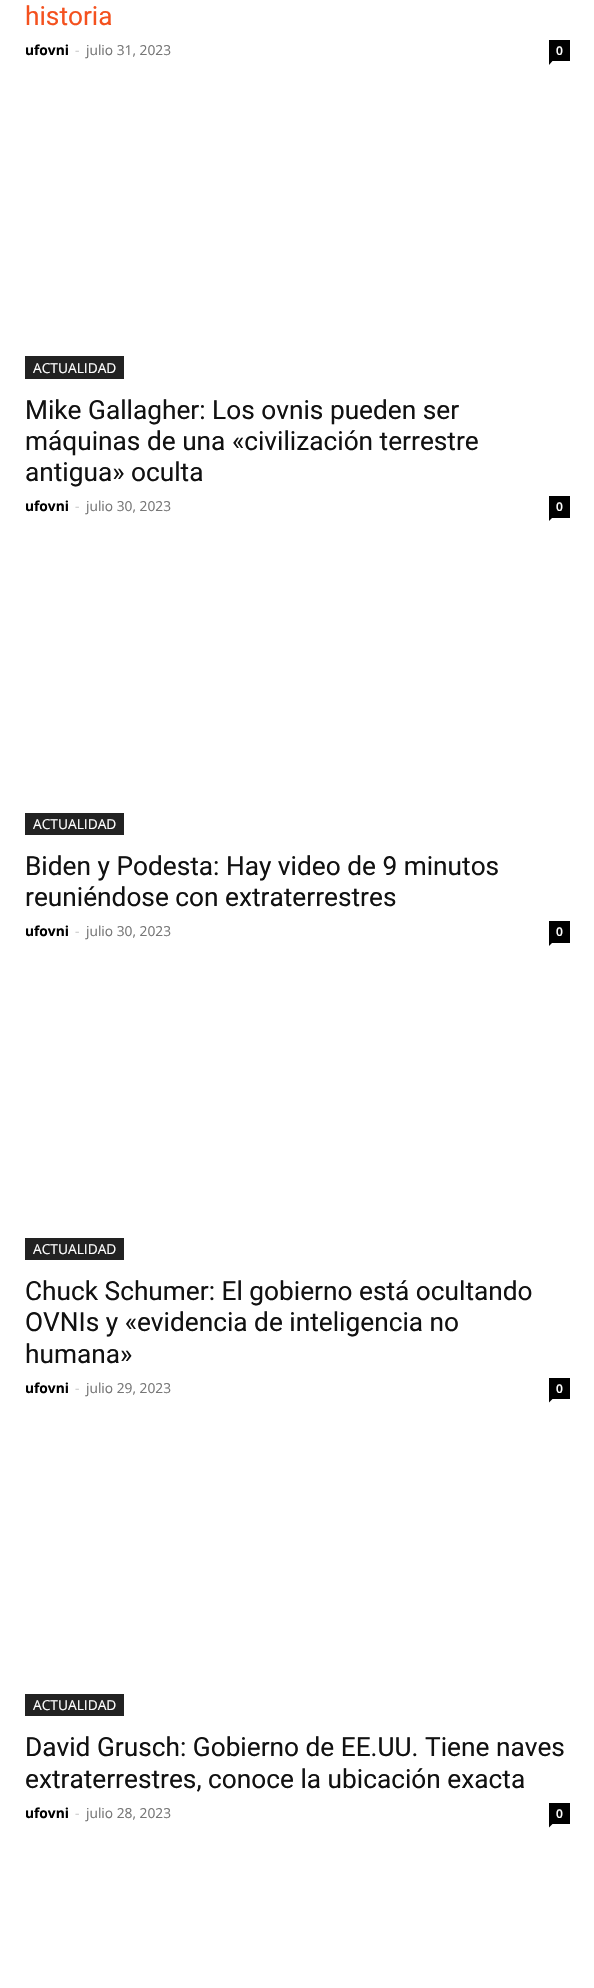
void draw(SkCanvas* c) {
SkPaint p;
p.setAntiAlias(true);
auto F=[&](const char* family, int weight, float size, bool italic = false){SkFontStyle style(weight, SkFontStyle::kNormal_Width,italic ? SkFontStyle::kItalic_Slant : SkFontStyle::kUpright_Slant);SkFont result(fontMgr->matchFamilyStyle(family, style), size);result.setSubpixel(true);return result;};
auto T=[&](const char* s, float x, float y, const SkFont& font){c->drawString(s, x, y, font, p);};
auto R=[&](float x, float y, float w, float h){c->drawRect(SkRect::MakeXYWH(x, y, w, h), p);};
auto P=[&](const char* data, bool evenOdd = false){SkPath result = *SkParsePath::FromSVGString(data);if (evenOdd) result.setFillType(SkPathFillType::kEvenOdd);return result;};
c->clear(0xffffffff);
auto f1 = F("Roboto",400,26.25);
p.setColor(0xfff4511e);
T("historia",25,25,f1);
auto f2 = F("Open Sans",700,13.75);
p.setColor(0xff000000);
T("ufovni",25,55,f2);
auto f3 = F("Open Sans",400,13.75);
p.setColor(0xffcccccc);
T("-",75,55,f3);
p.setColor(0xff767676);
T("julio 31, 2023",86,55,f3);
p.setColor(0xff000000);
R(549,40,21,21);
auto f4 = F("Open Sans",600,12);
p.setColor(0xffffffff);
T("0",556,55,f4);
p.setColor(0xff000000);
c->drawPath(P("M549 61h3.5l-3.5 4z"),p);
p.setColor(0xff222222);
R(25,356,99,23);
p.setColor(0xffffffff);
T("ACTUALIDAD",33,373,f3);
p.setColor(0xff111111);
T("Mike Gallagher: Los ovnis pueden ser",25,419,f1);
T("máquinas de una «civilización terrestre",25,450,f1);
T("antigua» oculta",25,481,f1);
p.setColor(0xff000000);
T("ufovni",25,511,f2);
p.setColor(0xffcccccc);
T("-",75,511,f3);
p.setColor(0xff767676);
T("julio 30, 2023",86,511,f3);
p.setColor(0xff000000);
R(549,496,21,22);
p.setColor(0xffffffff);
T("0",556,511,f4);
p.setColor(0xff000000);
c->drawPath(P("M549 517.5h3.5l-3.5 3.5z"),p);
p.setColor(0xff222222);
R(25,813,99,22);
p.setColor(0xffffffff);
T("ACTUALIDAD",33,829,f3);
p.setColor(0xff111111);
T("Biden y Podesta: Hay video de 9 minutos",25,875,f1);
T("reuniéndose con extraterrestres",25,906,f1);
p.setColor(0xff000000);
T("ufovni",25,936,f2);
p.setColor(0xffcccccc);
T("-",75,936,f3);
p.setColor(0xff767676);
T("julio 30, 2023",86,936,f3);
p.setColor(0xff000000);
R(549,921,21,22);
p.setColor(0xffffffff);
T("0",556,936,f4);
p.setColor(0xff000000);
c->drawPath(P("M549 942.5h3.5l-3.5 3.5z"),p);
p.setColor(0xff222222);
R(25,1238,99,22);
p.setColor(0xffffffff);
T("ACTUALIDAD",33,1254,f3);
p.setColor(0xff111111);
T("Chuck Schumer: El gobierno está ocultando",25,1300,f1);
T("OVNIs y «evidencia de inteligencia no",25,1331,f1);
T("humana»",25,1363,f1);
p.setColor(0xff000000);
T("ufovni",25,1393,f2);
p.setColor(0xffcccccc);
T("-",75,1393,f3);
p.setColor(0xff767676);
T("julio 29, 2023",86,1393,f3);
p.setColor(0xff000000);
R(549,1378,21,21);
p.setColor(0xffffffff);
T("0",556,1393,f4);
p.setColor(0xff000000);
c->drawPath(P("M549 1399h3.5l-3.5 3.5z"),p);
p.setColor(0xff222222);
R(25,1694,99,22);
p.setColor(0xffffffff);
T("ACTUALIDAD",33,1710,f3);
p.setColor(0xff111111);
T("David Grusch: Gobierno de EE.UU. Tiene naves",25,1756,f1);
T("extraterrestres, conoce la ubicación exacta",25,1788,f1);
p.setColor(0xff000000);
T("ufovni",25,1818,f2);
p.setColor(0xffcccccc);
T("-",75,1818,f3);
p.setColor(0xff767676);
T("julio 28, 2023",86,1818,f3);
p.setColor(0xff000000);
R(549,1803,21,21);
p.setColor(0xffffffff);
T("0",556,1818,f4);
p.setColor(0xff000000);
c->drawPath(P("M549 1824h3.5l-3.5 3.5z"),p);
}
